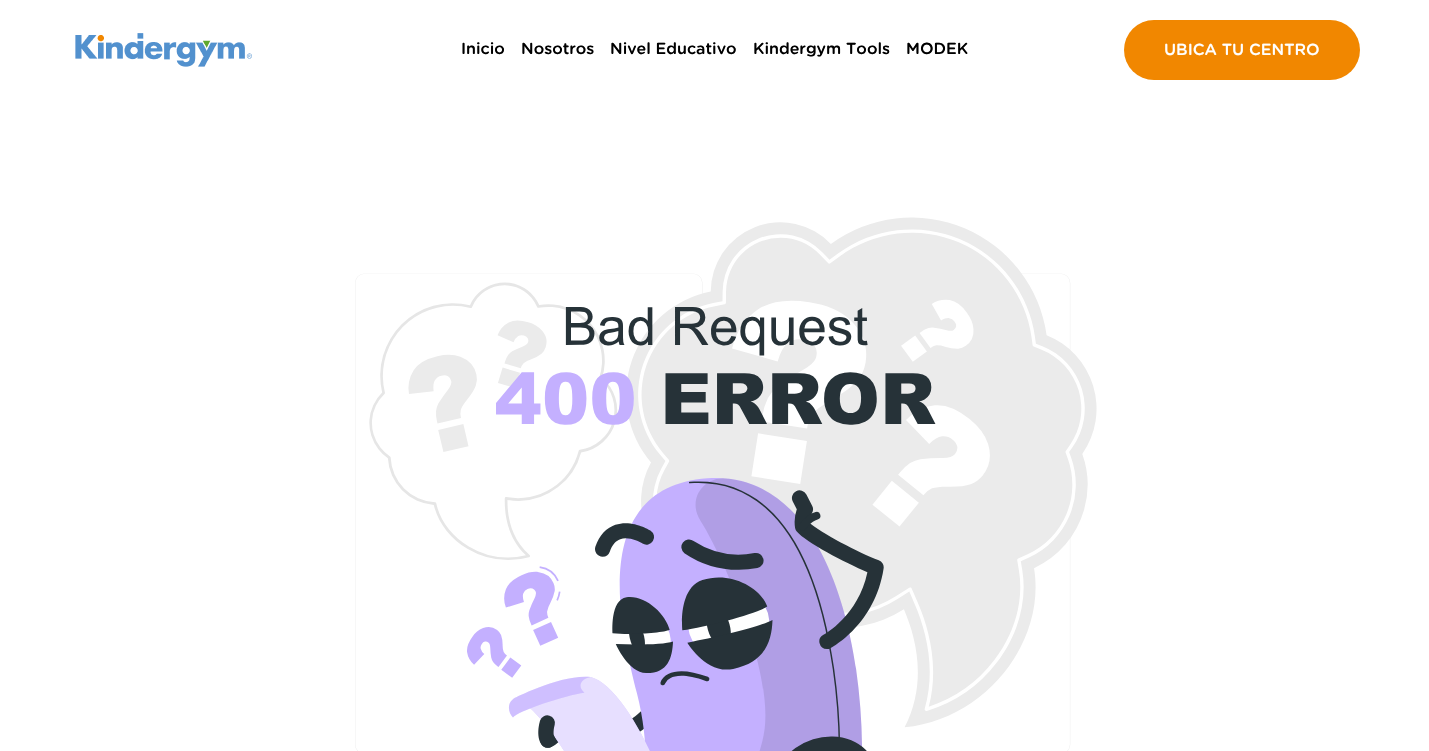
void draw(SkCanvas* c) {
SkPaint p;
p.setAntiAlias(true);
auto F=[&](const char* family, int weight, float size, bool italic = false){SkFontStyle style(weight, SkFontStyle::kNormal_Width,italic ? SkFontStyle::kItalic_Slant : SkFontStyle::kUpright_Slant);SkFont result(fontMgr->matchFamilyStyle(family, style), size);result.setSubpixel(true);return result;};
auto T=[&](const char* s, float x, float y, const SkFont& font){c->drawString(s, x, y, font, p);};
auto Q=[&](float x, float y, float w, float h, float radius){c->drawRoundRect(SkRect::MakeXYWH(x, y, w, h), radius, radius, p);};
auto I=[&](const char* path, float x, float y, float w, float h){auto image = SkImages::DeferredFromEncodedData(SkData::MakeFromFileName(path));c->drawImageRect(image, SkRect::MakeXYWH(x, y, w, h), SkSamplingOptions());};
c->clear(0xffffffff);
I("1.png",75,33,177,34);
auto f1 = F("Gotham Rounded",500,16);
p.setColor(0xff000000);
T("Inicio",461,54,f1);
T("Nosotros",521,54,f1);
T("Nivel Educativo",610,54,f1);
T("Kindergym Tools",753,54,f1);
T("MODEK",906,54,f1);
p.setColor(0xfff18700);
Q(1124,20,236,60,30);
p.setColor(0xffffffff);
T("UBICA TU CENTRO",1164,55,f1);
I("2.png",355,217,742,534);
}
